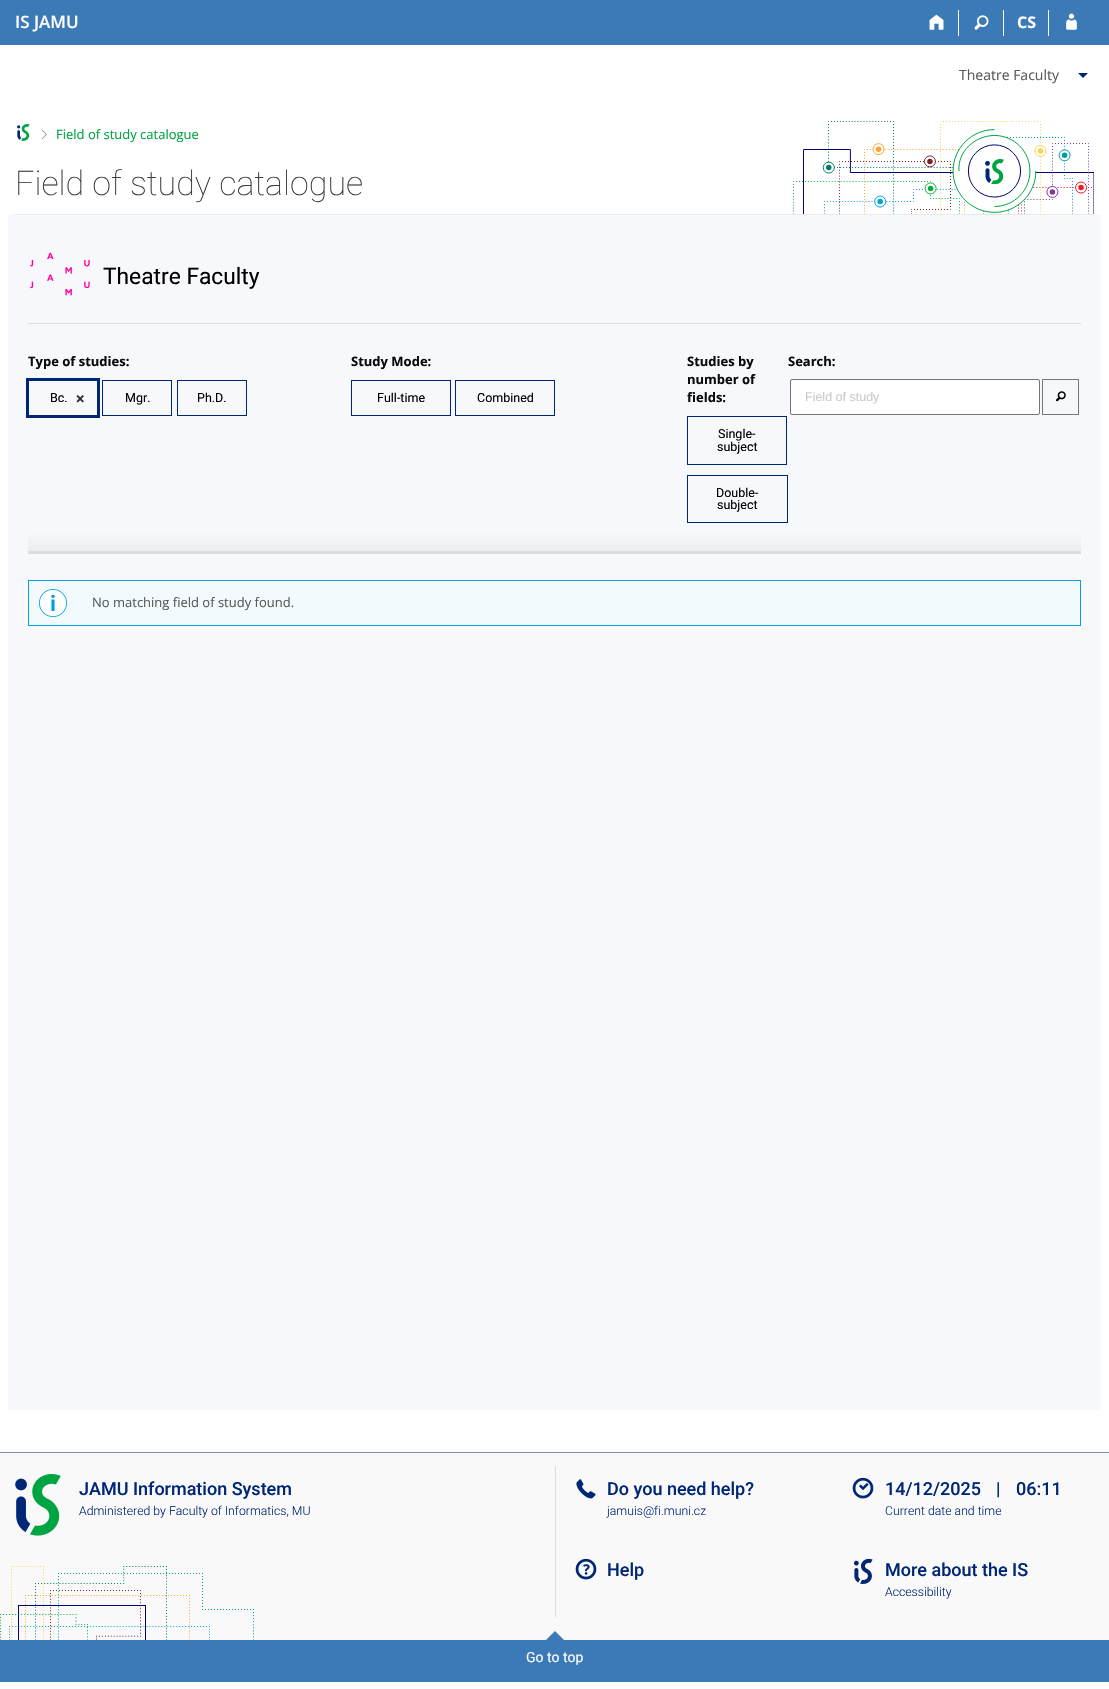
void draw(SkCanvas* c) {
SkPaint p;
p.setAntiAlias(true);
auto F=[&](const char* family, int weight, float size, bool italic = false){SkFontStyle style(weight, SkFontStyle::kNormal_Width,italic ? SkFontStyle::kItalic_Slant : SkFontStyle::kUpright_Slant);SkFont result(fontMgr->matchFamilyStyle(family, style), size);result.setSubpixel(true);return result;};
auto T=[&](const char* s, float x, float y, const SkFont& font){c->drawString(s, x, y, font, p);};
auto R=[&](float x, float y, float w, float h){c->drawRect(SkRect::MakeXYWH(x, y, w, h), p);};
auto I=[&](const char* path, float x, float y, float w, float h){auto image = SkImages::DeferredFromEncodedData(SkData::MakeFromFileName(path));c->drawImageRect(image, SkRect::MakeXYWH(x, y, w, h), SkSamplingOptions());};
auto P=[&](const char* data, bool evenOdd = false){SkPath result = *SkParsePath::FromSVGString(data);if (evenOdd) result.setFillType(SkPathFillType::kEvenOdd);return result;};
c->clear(0xffffffff);
p.setColor(0xff3c7ab7);
R(0,0,1109,45);
auto f1 = F("Open Sans",600,17);
p.setColor(0xffffffff);
T("IS JAMU",15,28,f1);
R(958,10,1,26);
I("1.png",929,14,15,16);
R(1003,10,1,26);
I("2.png",974,15,15,15);
R(1048,10,1,26);
auto f2 = F("Open Sans",700,16);
T("CS",1017,28,f2);
I("3.png",1066,13,11,17);
auto f3 = F("Open Sans",400,14);
p.setColor(0xff5a5a5a);
T("Theatre Faculty",959,80,f3);
p.setColor(0xff002776);
c->drawPath(P("M1078 73h10l-5 5z"),p);
I("4.png",17,124,13,17);
I("5.png",41,130,6,9);
auto f4 = F("Open Sans",400,13);
p.setColor(0xff00a442);
T("Field of study catalogue",56,139,f4);
auto f5 = F("Roboto",100,34);
p.setColor(0xff3a3a3a);
T("Field of study catalogue",15,195,f5);
I("6.png",793,121,301,93);
I("7.png",985,159,19,25);
p.setColor(0xffeaeaea);
R(15,214,1079,1);
p.setColor(0xfff7f8fc);
R(8,215,1093,1195);
I("8.png",30,252,60,44);
auto f6 = F("Roboto",400,22.75);
p.setColor(0xff000000);
T("Theatre Faculty",103,284,f6);
{
const SkColor colors[] = {0xffededf0,0xfff8f8fc};
const float stops[] = {0,.09};
const SkPoint ends[] = {{555,551}, {555,324}};
p.setShader(SkGradientShader::MakeLinear(ends, colors, stops, 2, SkTileMode::kClamp));
p.setAlpha(255);
}
R(28,535,1053,16);
p.setShader(nullptr);
p.setColor(0xffdddddd);
R(28,323,1053,1);
R(28,551,1053,3);
auto f7 = F("Open Sans",700,13);
p.setColor(0xff0a0a0a);
T("Type of studies:",28,366,f7);
p.setStroke(true);
p.setStrokeWidth(1);
p.setColor(0xff002776);
c->drawRect(SkRect::MakeXYWH(28.5,380.5,69,35),p);
p.setStrokeWidth(2);
c->drawRect(SkRect::MakeXYWH(27,379,72,38),p);
auto f8 = F("Roboto",400,12.5);
p.setStroke(false);
p.setColor(0xff000000);
T("Bc.",50,402,f8);
auto f9 = F("Roboto",700,16);
p.setColor(0xff333333);
T("×",76,404,f9);
p.setStroke(true);
p.setStrokeWidth(1);
p.setColor(0xff002776);
c->drawRect(SkRect::MakeXYWH(102.5,380.5,69,35),p);
p.setStroke(false);
p.setColor(0xff000000);
T("Mgr.",125,402,f8);
p.setStroke(true);
p.setColor(0xff002776);
c->drawRect(SkRect::MakeXYWH(177.5,380.5,69,35),p);
p.setStroke(false);
p.setColor(0xff000000);
T("Ph.D.",197,402,f8);
p.setColor(0xff0a0a0a);
T("Study Mode:",351,366,f7);
p.setStroke(true);
p.setColor(0xff002776);
c->drawRect(SkRect::MakeXYWH(351.5,380.5,99,35),p);
p.setStroke(false);
p.setColor(0xff000000);
T("Full-time",377,402,f8);
p.setStroke(true);
p.setColor(0xff002776);
c->drawRect(SkRect::MakeXYWH(455.5,380.5,99,35),p);
p.setStroke(false);
p.setColor(0xff000000);
T("Combined",477,402,f8);
p.setColor(0xff0a0a0a);
T("Studies by",687,366,f7);
T("number of",687,384,f7);
T("fields:",687,402,f7);
p.setStroke(true);
p.setColor(0xff002776);
c->drawRect(SkRect::MakeXYWH(687.5,416.5,99,48),p);
p.setStroke(false);
p.setColor(0xff000000);
T("Single-",718,438,f8);
T("subject",717,451,f8);
p.setStroke(true);
p.setColor(0xff002776);
c->drawRect(SkRect::MakeXYWH(687.5,475.5,100,47),p);
p.setStroke(false);
p.setColor(0xff000000);
T("Double-",716,497,f8);
T("subject",717,509,f8);
p.setColor(0xff0a0a0a);
T("Search:",788,366,f7);
p.setColor(0xffffffff);
c->drawRoundRect(SkRect::MakeXYWH(790.5,379.5,249,35),1.5,1.5,p);
p.setStroke(true);
p.setColor(0xff767676);
c->drawRoundRect(SkRect::MakeXYWH(790.5,379.5,249,35),1.5,1.5,p);
auto f10 = F("Liberation Sans",400,12.5);
p.setStroke(false);
p.setColor(0xffcacaca);
T("Field of study",805,401,f10);
p.setStroke(true);
p.setColor(0xff777777);
c->drawRect(SkRect::MakeXYWH(1042.5,379.5,36,35),p);
I("9.png",1056,391,10,11);
p.setStroke(false);
p.setColor(0xfff2fafd);
c->drawRect(SkRect::MakeXYWH(28.5,580.5,1052,45),p);
p.setStroke(true);
p.setColor(0xff00a1de);
c->drawRect(SkRect::MakeXYWH(28.5,580.5,1052,45),p);
p.setStroke(false);
p.setColor(0xffffffff);
c->drawCircle(53,603,14,p);
I("10.png",39,589,28,28);
p.setColor(0xff5a5a5a);
T("No matching field of study found.",92,607,f4);
p.setColor(0xfff9f9f9);
R(0,1453,1109,187);
p.setColor(0xff7d90b8);
R(0,1452,1109,1);
I("11.png",0,1566,254,74);
I("12.png",15,1474,46,62);
auto f11 = F("Roboto",500,18);
p.setColor(0xff002776);
T("JAMU Information System",79,1495,f11);
auto f12 = F("Roboto",300,12.25);
T("Administered by Faculty of Informatics, MU",79,1515,f12);
p.setColor(0xffdddddd);
R(555,1466,1,151);
I("13.png",576,1479,20,20);
p.setColor(0xff002776);
T("Do you need help?",607,1495,f11);
T("jamuis@fi.muni.cz",607,1515,f12);
I("14.png",575,1558,22,22);
T("Help",607,1576,f11);
I("15.png",852,1477,22,22);
T("14/12/2025",885,1495,f11);
T("|",996,1495,f11);
T("06:11",1016,1495,f11);
T("Current date and time",885,1515,f12);
I("16.png",854,1558,19,26);
T("More about the IS",885,1576,f11);
T("Accessibility",885,1596,f12);
p.setColor(0xff3c7ab7);
R(0,1640,1109,42);
c->drawPath(P("M566 1642h-22l11-11z"),p);
auto f13 = F("Roboto",400,14);
p.setColor(0xffffffff);
T("Go to top",526,1662,f13);
}
